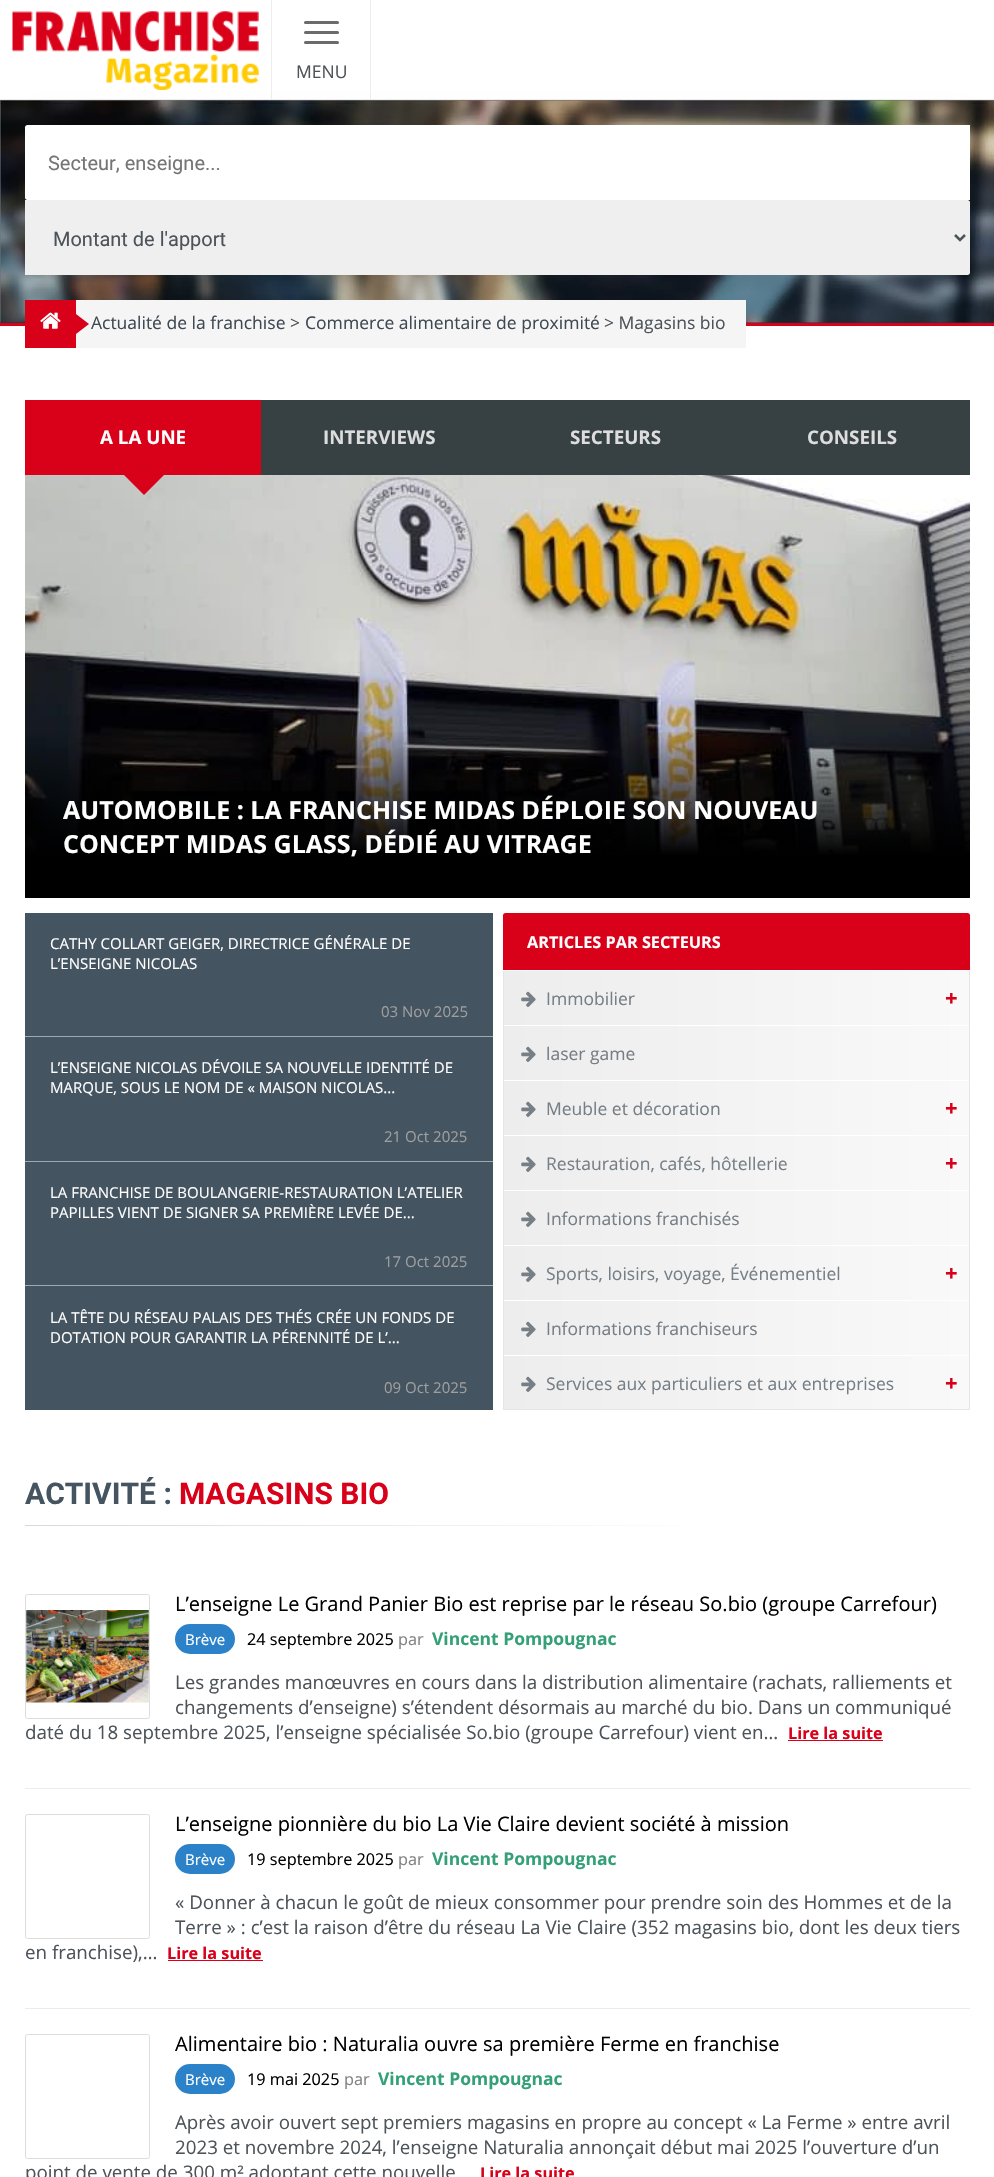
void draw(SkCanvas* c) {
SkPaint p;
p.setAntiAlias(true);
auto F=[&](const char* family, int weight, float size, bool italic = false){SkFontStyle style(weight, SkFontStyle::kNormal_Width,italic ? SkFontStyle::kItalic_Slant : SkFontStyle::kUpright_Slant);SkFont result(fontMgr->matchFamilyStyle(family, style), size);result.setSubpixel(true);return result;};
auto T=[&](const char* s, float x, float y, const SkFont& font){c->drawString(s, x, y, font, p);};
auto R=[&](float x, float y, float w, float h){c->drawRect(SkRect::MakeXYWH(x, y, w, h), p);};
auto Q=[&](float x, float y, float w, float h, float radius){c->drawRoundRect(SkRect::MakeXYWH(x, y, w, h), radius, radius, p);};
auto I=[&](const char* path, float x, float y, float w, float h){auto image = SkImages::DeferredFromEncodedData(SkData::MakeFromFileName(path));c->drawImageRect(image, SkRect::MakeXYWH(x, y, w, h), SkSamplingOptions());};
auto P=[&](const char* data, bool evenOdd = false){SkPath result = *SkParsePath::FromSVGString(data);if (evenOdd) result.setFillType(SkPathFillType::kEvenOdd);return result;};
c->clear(0xffffffff);
p.setColor(0xff243038);
R(0,322,994,1);
I("2.png",0,100,994,223);
p.setColor(0x33000000);
p.setMaskFilter(SkMaskFilter::MakeBlur(kNormal_SkBlurStyle, 19.5));
c->drawRect(SkRect::MakeXYWH(38,138,920,50),p);
p.setMaskFilter(nullptr);
p.setColor(0xffededed);
R(0,99,994,1);
I("1.png",12,11,247,79);
R(370,0,1,100);
R(271,0,1,100);
p.setColor(0xff6b6b6b);
Q(304,21,35,3,1.5);
Q(304,31,35,3,1.5);
Q(304,41,35,3,1.5);
auto f1 = F("Open Sans",400,17.5);
p.setColor(0xff4d5459);
T("MENU",296,78,f1);
p.setColor(0xffffffff);
c->drawPath(P("M27.5 125h942.5v75h-942.5c-1.5 0-2.5-1-2.5-2.5v-70c0-1.5 1-2.5 2.5-2.5z"),p);
auto f2 = F("Roboto",400,20);
p.setColor(0xff757575);
T("Secteur, enseigne...",48,170,f2);
p.setColor(0xffefefef);
c->drawPath(P("M25 200h942.5c1.5 0 2.5 1 2.5 2.5v70c0 1.5-1 2.5-2.5 2.5h-942.5z"),p);
p.setStroke(true);
p.setStrokeWidth(2.5);
p.setColor(0xff4d5459);
c->drawPath(P("M955 235l5 5l5-5"),p);
p.setStroke(false);
T("Montant de l'apport",53,246,f2);
p.setColor(0xffd90119);
R(0,323,994,3);
p.setColor(0xfff5f5f5);
R(76,300,670,48);
p.setColor(0xffd90119);
R(25,300,51,48);
I("3.png",40,312,21,17);
c->drawPath(P("M76 334v-20l13 10z"),p);
p.setColor(0xff3f4953);
T("Actualité de la franchise",91,329,f1);
p.setColor(0xff4d5459);
T(">",290,329,f1);
p.setColor(0xff3f4953);
T("Commerce alimentaire de proximité",305,329,f1);
p.setColor(0xff4d5459);
T("> Magasins bio",604,329,f1);
p.setColor(0xffd90119);
R(25,400,236,75);
auto f3 = F("Open Sans",700,18.75);
p.setColor(0xffffffff);
T("A LA UNE",100,444,f3);
I("4.png",25,475,945,380);
p.setColor(0xffd90119);
c->drawPath(P("M124 475h40l-20 20z"),p);
p.setColor(0xff374144);
R(261,400,709,75);
p.setColor(0xffdddddd);
T("INTERVIEWS",323,444,f3);
T("SECTEURS",570,444,f3);
T("CONSEILS",807,444,f3);
{
const SkColor colors[] = {0x00000000,0x00000000,0xff000000};
const float stops[] = {.33,.6,.9};
const SkPoint ends[] = {{498,475}, {498,898}};
p.setShader(SkGradientShader::MakeLinear(ends, colors, stops, 3, SkTileMode::kClamp));
p.setAlpha(255);
}
R(25,732,945,166);
auto f4 = F("Open Sans",700,25);
p.setShader(nullptr);
p.setColor(0xffffffff);
T("AUTOMOBILE : LA FRANCHISE MIDAS DÉPLOIE SON NOUVEAU",63,819,f4);
T("CONCEPT MIDAS GLASS, DÉDIÉ AU VITRAGE",63,853,f4);
p.setColor(0xff455461);
R(25,913,468,372);
p.setColor(0xff9eaab3);
R(25,1036,468,1);
auto f5 = F("Open Sans",400,15);
p.setColor(0xffffffff);
T("CATHY COLLART GEIGER, DIRECTRICE GÉNÉRALE DE",50,949,f5);
T("L’ENSEIGNE NICOLAS",50,969,f5);
p.setColor(0xff9e9e9e);
T("03 Nov 2025",381,1017,f5);
p.setColor(0xff9eaab3);
R(25,1161,468,1);
p.setColor(0xffffffff);
T("L’ENSEIGNE NICOLAS DÉVOILE SA NOUVELLE IDENTITÉ DE",50,1073,f5);
T("MARQUE, SOUS LE NOM DE « MAISON NICOLAS...",50,1093,f5);
p.setColor(0xff9e9e9e);
T("21 Oct 2025",384,1142,f5);
p.setColor(0xff9eaab3);
R(25,1285,468,1);
p.setColor(0xffffffff);
T("LA FRANCHISE DE BOULANGERIE-RESTAURATION L’ATELIER",50,1198,f5);
T("PAPILLES VIENT DE SIGNER SA PREMIÈRE LEVÉE DE...",50,1218,f5);
p.setColor(0xff9e9e9e);
T("17 Oct 2025",384,1267,f5);
p.setColor(0xff455461);
R(25,1286,468,124);
p.setColor(0xffffffff);
T("LA TÊTE DU RÉSEAU PALAIS DES THÉS CRÉE UN FONDS DE",50,1323,f5);
T("DOTATION POUR GARANTIR LA PÉRENNITÉ DE L’...",50,1343,f5);
p.setColor(0xff9e9e9e);
T("09 Oct 2025",384,1393,f5);
p.setColor(0xffd90119);
c->drawPath(P("M505.5 913h462c1.5 0 2.5 1 2.5 2.5v55.5h-467v-55.5c0-1.5 1-2.5 2.5-2.5z"),p);
p.setColor(0xffffffff);
R(503,970,467,1);
auto f6 = F("Open Sans",700,16.25);
T("ARTICLES PAR SECTEURS",527,948,f6);
p.setColor(0xffe6e6e6);
R(969,971,1,439);
R(503,1409,467,1);
R(503,971,1,439);
{
const SkColor colors[] = {0xffededed,0xfff9f9f9};
const float stops[] = {0,1};
const SkPoint ends[] = {{504,998}, {969,998}};
p.setShader(SkGradientShader::MakeLinear(ends, colors, stops, 2, SkTileMode::kClamp));
p.setAlpha(255);
}
R(504,971,465,54);
I("5.png",521,991,15,16);
p.setShader(nullptr);
p.setColor(0xff767f86);
T("Immobilier",546,1005,f1);
auto f7 = F("Open Sans",700,22);
p.setColor(0xffd90119);
T("+",945,1006,f7);
{
const SkColor colors[] = {0xffededed,0xfff9f9f9};
const float stops[] = {0,1};
const SkPoint ends[] = {{504,1053}, {969,1053}};
p.setShader(SkGradientShader::MakeLinear(ends, colors, stops, 2, SkTileMode::kClamp));
p.setAlpha(255);
}
R(504,1026,465,54);
I("5.png",521,1046,15,16);
p.setShader(nullptr);
p.setColor(0xff767f86);
T("laser game",546,1060,f1);
{
const SkColor colors[] = {0xffededed,0xfff9f9f9};
const float stops[] = {0,1};
const SkPoint ends[] = {{504,1108}, {969,1108}};
p.setShader(SkGradientShader::MakeLinear(ends, colors, stops, 2, SkTileMode::kClamp));
p.setAlpha(255);
}
R(504,1081,465,54);
I("5.png",521,1101,15,16);
p.setShader(nullptr);
p.setColor(0xff767f86);
T("Meuble et décoration",546,1115,f1);
p.setColor(0xffd90119);
T("+",945,1116,f7);
{
const SkColor colors[] = {0xffededed,0xfff9f9f9};
const float stops[] = {0,1};
const SkPoint ends[] = {{504,1163}, {969,1163}};
p.setShader(SkGradientShader::MakeLinear(ends, colors, stops, 2, SkTileMode::kClamp));
p.setAlpha(255);
}
R(504,1136,465,54);
I("5.png",521,1156,15,16);
p.setShader(nullptr);
p.setColor(0xff767f86);
T("Restauration, cafés, hôtellerie",546,1170,f1);
p.setColor(0xffd90119);
T("+",945,1171,f7);
{
const SkColor colors[] = {0xffededed,0xfff9f9f9};
const float stops[] = {0,1};
const SkPoint ends[] = {{504,1218}, {969,1218}};
p.setShader(SkGradientShader::MakeLinear(ends, colors, stops, 2, SkTileMode::kClamp));
p.setAlpha(255);
}
R(504,1191,465,54);
I("5.png",521,1211,15,16);
p.setShader(nullptr);
p.setColor(0xff767f86);
T("Informations franchisés",546,1225,f1);
{
const SkColor colors[] = {0xffededed,0xfff9f9f9};
const float stops[] = {0,1};
const SkPoint ends[] = {{504,1273}, {969,1273}};
p.setShader(SkGradientShader::MakeLinear(ends, colors, stops, 2, SkTileMode::kClamp));
p.setAlpha(255);
}
R(504,1246,465,54);
I("5.png",521,1266,15,16);
p.setShader(nullptr);
p.setColor(0xff767f86);
T("Sports, loisirs, voyage, Événementiel",546,1280,f1);
p.setColor(0xffd90119);
T("+",945,1281,f7);
{
const SkColor colors[] = {0xffededed,0xfff9f9f9};
const float stops[] = {0,1};
const SkPoint ends[] = {{504,1328}, {969,1328}};
p.setShader(SkGradientShader::MakeLinear(ends, colors, stops, 2, SkTileMode::kClamp));
p.setAlpha(255);
}
R(504,1301,465,54);
I("5.png",521,1321,15,16);
p.setShader(nullptr);
p.setColor(0xff767f86);
T("Informations franchiseurs",546,1335,f1);
{
const SkColor colors[] = {0xffededed,0xfff9f9f9};
const float stops[] = {0,1};
const SkPoint ends[] = {{504,1383}, {969,1383}};
p.setShader(SkGradientShader::MakeLinear(ends, colors, stops, 2, SkTileMode::kClamp));
p.setAlpha(255);
}
R(504,1356,465,53);
I("5.png",521,1376,15,16);
p.setShader(nullptr);
p.setColor(0xff767f86);
T("Services aux particuliers et aux entreprises",546,1390,f1);
p.setColor(0xffd90119);
T("+",945,1391,f7);
auto f8 = F("Roboto",700,30);
p.setColor(0xff455461);
T("ACTIVITÉ :",25,1504,f8);
p.setColor(0xffd90119);
T("MAGASINS BIO",179,1504,f8);
{
const SkColor colors[] = {0xffd8d8d8,0xffffffff};
const float stops[] = {0,.74};
const SkPoint ends[] = {{25,1526}, {970,1526}};
p.setShader(SkGradientShader::MakeLinear(ends, colors, stops, 2, SkTileMode::kClamp));
p.setAlpha(255);
}
R(25,1525,654,1);
p.setShader(nullptr);
p.setColor(0xffececec);
R(25,1788,945,1);
I("6.png",26,1610,123,93);
p.setStroke(true);
p.setStrokeWidth(1);
p.setColor(0xffdddddd);
c->drawRoundRect(SkRect::MakeXYWH(25.5,1594.5,124,124),2,2,p);
auto f9 = F("Open Sans",400,20);
p.setStroke(false);
p.setColor(0xff000000);
T("L’enseigne Le Grand Panier Bio est reprise par le réseau So.bio (groupe Carrefour)",175,1611,f9);
p.setColor(0xff2c82c9);
Q(175,1624,60,30,15);
p.setColor(0xffffffff);
T("Brève",185,1645,f5);
auto f10 = F("Open Sans",400,16.25);
p.setColor(0xff000000);
T("24 septembre 2025",247,1645,f10);
p.setColor(0xff828282);
T("par",398,1645,f10);
auto f11 = F("Open Sans",700,17.5);
p.setColor(0xff34a078);
T("Vincent Pompougnac",432,1645,f11);
auto f12 = F("Open Sans",400,18.75);
p.setColor(0xff4d5459);
T("Les grandes manœuvres en cours dans la distribution alimentaire (rachats, ralliements et",175,1689,f12);
T("changements d’enseigne) s’étendent désormais au marché du bio. Dans un communiqué",175,1714,f12);
T("daté du 18 septembre 2025, l’enseigne spécialisée So.bio (groupe Carrefour) vient en…",25,1739,f12);
p.setColor(0xffd90119);
T("Lire la suite",788,1739,f6);
R(788,1740,95,1);
p.setColor(0xffececec);
R(25,2008,945,1);
p.setStroke(true);
p.setColor(0xffdddddd);
c->drawRoundRect(SkRect::MakeXYWH(25.5,1814.5,124,124),2,2,p);
p.setStroke(false);
p.setColor(0xff000000);
T("L’enseigne pionnière du bio La Vie Claire devient société à mission",175,1831,f9);
p.setColor(0xff2c82c9);
Q(175,1844,60,30,15);
p.setColor(0xffffffff);
T("Brève",185,1865,f5);
p.setColor(0xff000000);
T("19 septembre 2025",247,1865,f10);
p.setColor(0xff828282);
T("par",398,1865,f10);
p.setColor(0xff34a078);
T("Vincent Pompougnac",432,1865,f11);
p.setColor(0xff4d5459);
T("« Donner à chacun le goût de mieux consommer pour prendre soin des Hommes et de la",175,1909,f12);
T("Terre » : c’est la raison d’être du réseau La Vie Claire (352 magasins bio, dont les deux tiers",175,1934,f12);
T("en franchise),…",25,1959,f12);
p.setColor(0xffd90119);
T("Lire la suite",167,1959,f6);
R(168,1960,95,1);
p.setStroke(true);
p.setColor(0xffdddddd);
c->drawRoundRect(SkRect::MakeXYWH(25.5,2034.5,124,124),2,2,p);
p.setStroke(false);
p.setColor(0xff000000);
T("Alimentaire bio : Naturalia ouvre sa première Ferme en franchise",175,2051,f9);
p.setColor(0xff2c82c9);
Q(175,2064,60,30,15);
p.setColor(0xffffffff);
T("Brève",185,2085,f5);
p.setColor(0xff000000);
T("19 mai 2025",247,2085,f10);
p.setColor(0xff828282);
T("par",344,2085,f10);
p.setColor(0xff34a078);
T("Vincent Pompougnac",378,2085,f11);
p.setColor(0xff4d5459);
T("Après avoir ouvert sept premiers magasins en propre au concept « La Ferme » entre avril",175,2129,f12);
T("2023 et novembre 2024, l’enseigne Naturalia annonçait début mai 2025 l’ouverture d’un",175,2154,f12);
T("point de vente de 300 m² adoptant cette nouvelle",25,2179,f12);
p.setColor(0xffd90119);
T("Lire la suite",480,2179,f6);
}
